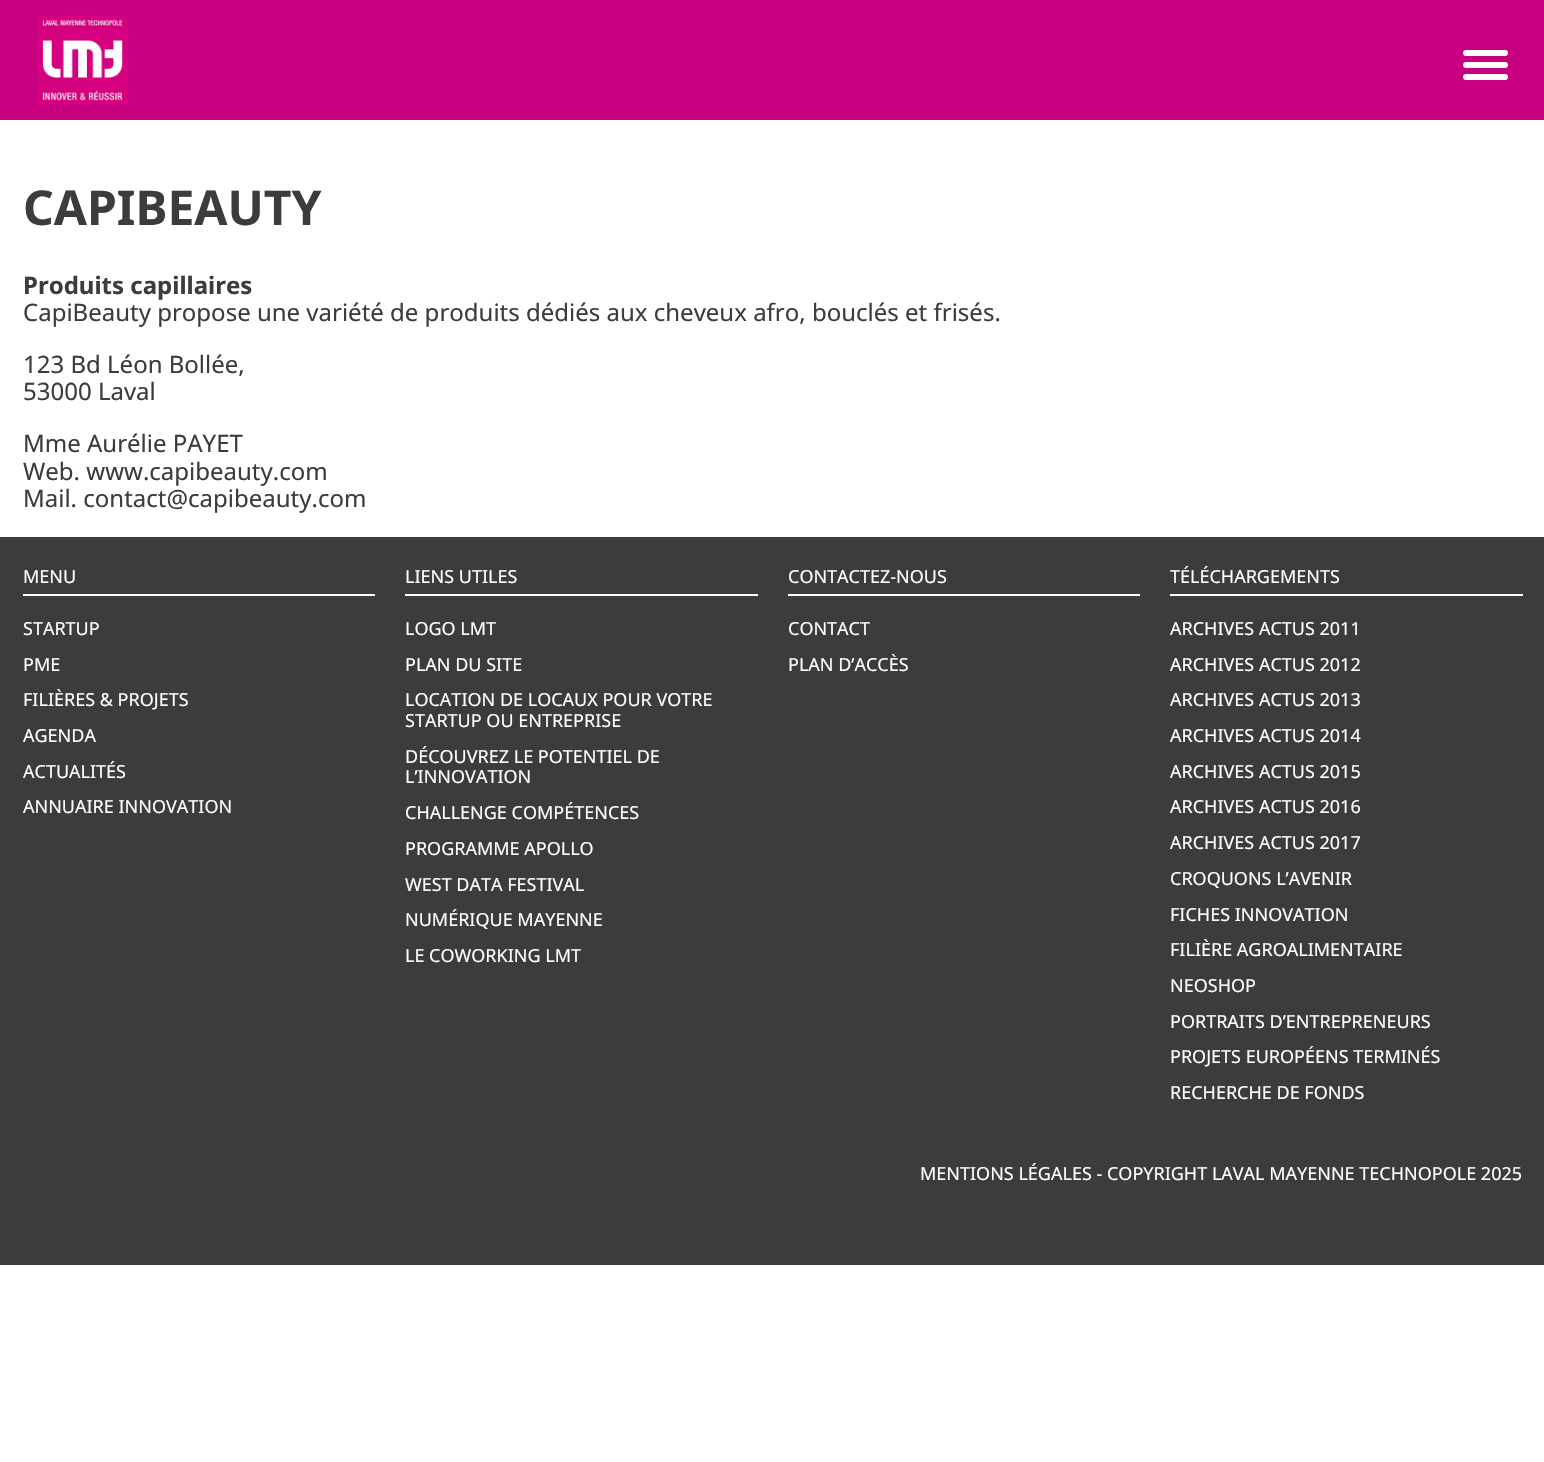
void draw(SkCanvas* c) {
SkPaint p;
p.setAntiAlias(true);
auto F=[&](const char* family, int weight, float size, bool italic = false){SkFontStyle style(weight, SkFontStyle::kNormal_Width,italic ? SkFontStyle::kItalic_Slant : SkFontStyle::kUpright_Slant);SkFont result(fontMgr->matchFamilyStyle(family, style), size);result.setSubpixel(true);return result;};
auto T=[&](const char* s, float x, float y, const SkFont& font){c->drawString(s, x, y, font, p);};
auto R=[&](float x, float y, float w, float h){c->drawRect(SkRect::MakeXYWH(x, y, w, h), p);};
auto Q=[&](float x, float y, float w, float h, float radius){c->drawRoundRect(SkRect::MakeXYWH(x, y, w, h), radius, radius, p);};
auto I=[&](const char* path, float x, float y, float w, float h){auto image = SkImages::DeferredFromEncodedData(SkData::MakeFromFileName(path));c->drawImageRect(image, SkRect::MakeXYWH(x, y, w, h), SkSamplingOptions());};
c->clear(0xffffffff);
p.setColor(0xffc6007e);
R(0,0,1544,120);
I("1.png",37,15,91,90);
p.setColor(0xffffffff);
Q(1463,50,45,6,3);
Q(1463,62,45,6,3);
Q(1463,74,45,6,3);
auto f1 = F("Noto Sans",700,48);
p.setColor(0xff3c3c3b);
T("CAPIBEAUTY",23,225,f1);
auto f2 = F("Noto Sans",700,24);
T("Produits capillaires",23,294,f2);
auto f3 = F("Noto Sans",400,24);
T("CapiBeauty propose une variété de produits dédiés aux cheveux afro, bouclés et frisés.",23,321,f3);
T("123 Bd Léon Bollée,",23,373,f3);
T("53000 Laval",23,400,f3);
T("Mme Aurélie PAYET",23,452,f3);
T("Web. www.capibeauty.com",23,480,f3);
T("Mail. contact@capibeauty.com",23,507,f3);
R(0,537,1544,728);
p.setColor(0xffffffff);
R(23,594,352,2);
auto f4 = F("Noto Sans",400,18);
T("MENU",23,583,f4);
T("STARTUP",23,635,f4);
T("PME",23,671,f4);
T("FILIÈRES & PROJETS",23,706,f4);
T("AGENDA",23,742,f4);
T("ACTUALITÉS",23,778,f4);
T("ANNUAIRE INNOVATION",23,813,f4);
R(405,594,353,2);
T("LIENS UTILES",405,583,f4);
T("LOGO LMT",405,635,f4);
T("PLAN DU SITE",405,671,f4);
T("LOCATION DE LOCAUX POUR VOTRE",405,706,f4);
T("STARTUP OU ENTREPRISE",405,727,f4);
T("DÉCOUVREZ LE POTENTIEL DE",405,763,f4);
T("L’INNOVATION",405,783,f4);
T("CHALLENGE COMPÉTENCES",405,819,f4);
T("PROGRAMME APOLLO",405,855,f4);
T("WEST DATA FESTIVAL",405,891,f4);
T("NUMÉRIQUE MAYENNE",405,926,f4);
T("LE COWORKING LMT",405,962,f4);
R(788,594,352,2);
T("CONTACTEZ-NOUS",788,583,f4);
T("CONTACT",788,635,f4);
T("PLAN D’ACCÈS",788,671,f4);
R(1170,594,353,2);
T("TÉLÉCHARGEMENTS",1170,583,f4);
T("ARCHIVES ACTUS 2011",1170,635,f4);
T("ARCHIVES ACTUS 2012",1170,671,f4);
T("ARCHIVES ACTUS 2013",1170,706,f4);
T("ARCHIVES ACTUS 2014",1170,742,f4);
T("ARCHIVES ACTUS 2015",1170,778,f4);
T("ARCHIVES ACTUS 2016",1170,813,f4);
T("ARCHIVES ACTUS 2017",1170,849,f4);
T("CROQUONS L’AVENIR",1170,885,f4);
T("FICHES INNOVATION",1170,921,f4);
T("FILIÈRE AGROALIMENTAIRE",1170,956,f4);
T("NEOSHOP",1170,992,f4);
T("PORTRAITS D’ENTREPRENEURS",1170,1028,f4);
T("PROJETS EUROPÉENS TERMINÉS",1170,1063,f4);
T("RECHERCHE DE FONDS",1170,1099,f4);
T("MENTIONS LÉGALES - COPYRIGHT LAVAL MAYENNE TECHNOPOLE 2025",920,1180,f4);
}
